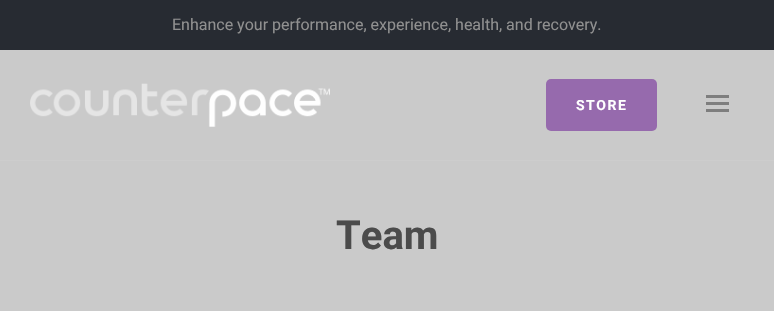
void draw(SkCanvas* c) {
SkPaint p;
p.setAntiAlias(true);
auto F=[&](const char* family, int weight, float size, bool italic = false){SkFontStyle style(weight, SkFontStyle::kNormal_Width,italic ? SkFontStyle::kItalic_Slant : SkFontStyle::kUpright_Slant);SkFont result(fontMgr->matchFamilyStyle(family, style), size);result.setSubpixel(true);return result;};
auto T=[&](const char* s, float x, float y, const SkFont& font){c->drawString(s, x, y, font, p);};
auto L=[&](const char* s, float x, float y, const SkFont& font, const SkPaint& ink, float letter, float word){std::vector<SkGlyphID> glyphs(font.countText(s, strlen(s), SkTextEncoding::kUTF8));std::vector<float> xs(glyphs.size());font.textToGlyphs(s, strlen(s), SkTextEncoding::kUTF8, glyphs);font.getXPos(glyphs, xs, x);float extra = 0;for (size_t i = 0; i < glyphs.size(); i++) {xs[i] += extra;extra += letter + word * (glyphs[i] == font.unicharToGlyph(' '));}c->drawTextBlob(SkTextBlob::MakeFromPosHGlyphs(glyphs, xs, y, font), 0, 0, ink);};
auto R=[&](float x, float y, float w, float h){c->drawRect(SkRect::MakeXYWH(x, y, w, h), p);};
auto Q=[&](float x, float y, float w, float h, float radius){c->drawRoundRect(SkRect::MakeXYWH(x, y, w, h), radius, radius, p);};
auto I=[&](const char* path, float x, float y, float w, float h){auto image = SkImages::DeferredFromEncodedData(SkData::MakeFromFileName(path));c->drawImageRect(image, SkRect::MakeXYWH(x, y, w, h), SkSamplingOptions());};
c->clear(0xffcacaca);
p.setColor(0xffcdcdcd);
R(0,160,774,1);
p.setColor(0xff272b32);
R(0,0,774,50);
auto f1 = F("Roboto",400,16);
p.setColor(0xff909090);
T("Enhance your performance, experience, health, and recovery.",172,30,f1);
I("1.png",30,83,300,44);
p.setColor(0xff966aad);
Q(546,79,111,52,5);
auto f2 = F("Roboto",700,14);
p.setColor(0xffffffff);
L("STORE",576,110,f2,p,1.5,0);
p.setColor(0xff7e7e7e);
R(706,102,23,3);
R(706,95,23,3);
R(706,109,23,3);
auto f3 = F("Roboto",700,40);
p.setColor(0xff4b4b4b);
T("Team",336,249,f3);
}
